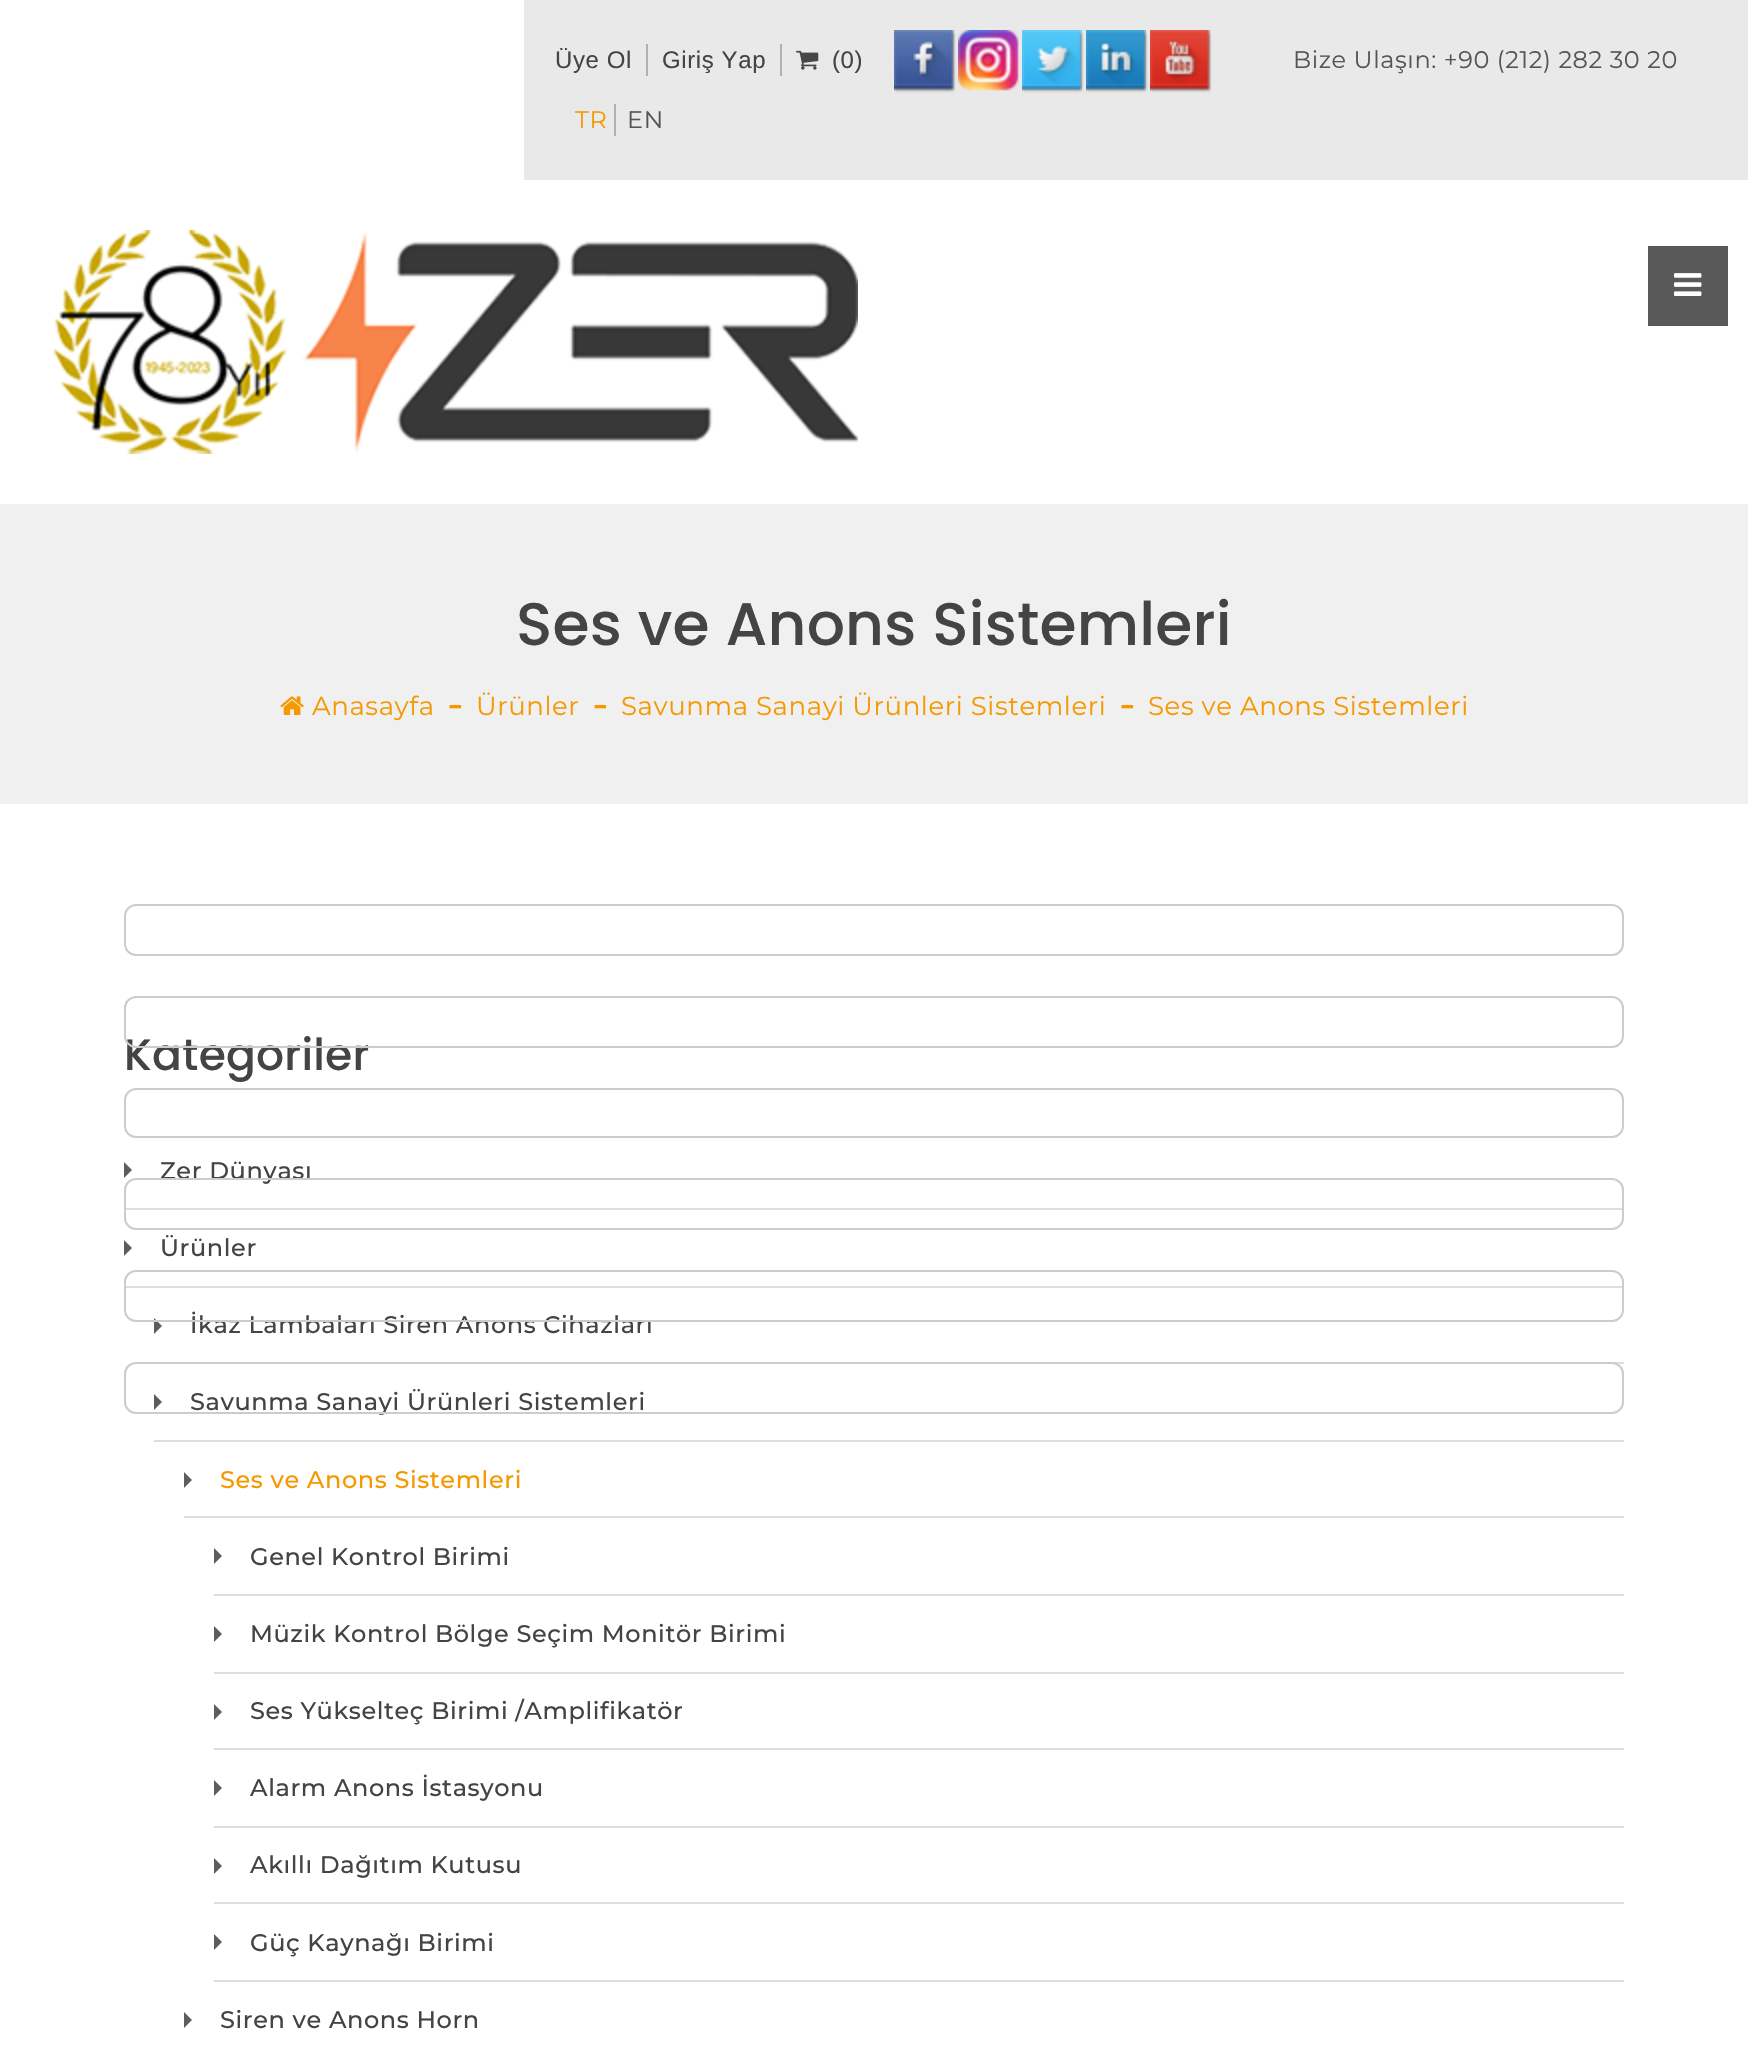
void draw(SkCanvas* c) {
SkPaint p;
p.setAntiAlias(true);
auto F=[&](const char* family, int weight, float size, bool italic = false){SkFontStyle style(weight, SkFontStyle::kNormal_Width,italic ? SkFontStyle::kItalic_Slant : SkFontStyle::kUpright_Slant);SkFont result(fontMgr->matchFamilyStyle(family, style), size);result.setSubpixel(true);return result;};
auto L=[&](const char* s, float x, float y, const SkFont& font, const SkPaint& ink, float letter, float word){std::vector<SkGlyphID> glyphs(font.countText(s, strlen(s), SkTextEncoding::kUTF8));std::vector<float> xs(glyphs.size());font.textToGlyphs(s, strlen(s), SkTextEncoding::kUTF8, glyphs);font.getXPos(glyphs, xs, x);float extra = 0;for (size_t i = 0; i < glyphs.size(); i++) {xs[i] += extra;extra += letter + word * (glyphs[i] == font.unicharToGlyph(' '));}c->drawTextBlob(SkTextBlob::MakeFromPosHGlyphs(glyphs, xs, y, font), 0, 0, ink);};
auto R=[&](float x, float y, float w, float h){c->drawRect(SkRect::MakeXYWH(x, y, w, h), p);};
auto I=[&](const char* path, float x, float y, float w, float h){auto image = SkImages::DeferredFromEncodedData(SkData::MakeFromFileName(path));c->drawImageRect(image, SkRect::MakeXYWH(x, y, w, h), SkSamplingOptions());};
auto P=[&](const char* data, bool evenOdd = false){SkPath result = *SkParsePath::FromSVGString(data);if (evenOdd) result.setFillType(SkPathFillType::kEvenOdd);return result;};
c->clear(0xffffffff);
p.setColor(0xffe9e9e9);
R(524,0,1224,180);
auto f1 = F("Arimo",400,24);
p.setColor(0xff444444);
L("Üye Ol",555,68,f1,p,.6,0);
p.setColor(0xffb1b1b1);
R(646,44,2,32);
p.setColor(0xff444444);
L("Giriş Yap",662,68,f1,p,.6,0);
p.setColor(0xffb1b1b1);
R(780,44,2,32);
I("1.png",796,50,23,20);
p.setColor(0xff444444);
L("(0)",832,68,f1,p,.6,0);
I("2.png",894,30,62,63);
I("3.png",958,30,61,61);
I("4.png",1022,30,62,63);
I("5.png",1086,30,62,63);
I("6.png",1150,30,62,63);
auto f2 = F("Montserrat",400,24);
p.setColor(0xff555555);
L("Bize Ulaşın: +90 (212) 282 30 20",1293,68,f2,p,.6,0);
p.setColor(0xfff69900);
L("TR",575,128,f2,p,.6,0);
p.setColor(0xffb1b1b1);
R(614,104,2,32);
p.setColor(0xff555555);
L("EN",627,128,f2,p,.6,0);
I("7.png",53,230,805,224);
p.setColor(0xff595959);
R(1648,246,80,80);
I("8.png",1674,273,28,23);
p.setColor(0xfff0f0f0);
R(0,504,1748,300);
auto f3 = F("Poppins",500,60);
p.setColor(0xff444444);
L("Ses ve Anons Sistemleri",516,645,f3,p,.2,0);
I("9.png",280,696,24,19);
auto f4 = F("Montserrat",400,26);
p.setColor(0xfff69900);
L("Anasayfa",312,715,f4,p,.6,0);
auto f5 = F("Liberation Serif",400,44);
L("-",448,717,f5,p,.6,0);
L("Ürünler",476,715,f4,p,.6,0);
L("-",593,717,f5,p,.6,0);
L("Savunma Sanayi Ürünleri Sistemleri",621,715,f4,p,.6,0);
L("-",1120,717,f5,p,.6,0);
L("Ses ve Anons Sistemleri",1148,715,f4,p,.6,0);
p.setStroke(true);
p.setStrokeWidth(2);
p.setColor(0xffcccccc);
c->drawRoundRect(SkRect::MakeXYWH(125,905,1498,50),11,11,p);
auto f6 = F("Poppins",500,44);
p.setStroke(false);
p.setColor(0xff444444);
L("Kategoriler",124,1070,f6,p,.2,0);
p.setStroke(true);
p.setColor(0xffcccccc);
c->drawRoundRect(SkRect::MakeXYWH(125,997,1498,50),11,11,p);
c->drawRoundRect(SkRect::MakeXYWH(125,1089,1498,48),11,11,p);
p.setStroke(false);
p.setColor(0xffdedede);
R(124,1208,1500,2);
auto f7 = F("Montserrat",500,24);
p.setColor(0xff444444);
L("Zer Dünyası",160,1179,f7,p,.6,0);
p.setStroke(true);
p.setColor(0xffcccccc);
c->drawRoundRect(SkRect::MakeXYWH(125,1179,1498,50),11,11,p);
p.setStroke(false);
p.setColor(0xffdedede);
R(124,1286,1500,2);
p.setColor(0xff5d5d5d);
c->drawPath(P("M154 1334v-16l8 8z"),p);
p.setColor(0xff444444);
L("İkaz Lambaları Siren Anons Cihazları",190,1333,f7,p,.6,0);
p.setStroke(true);
p.setColor(0xffcccccc);
c->drawRoundRect(SkRect::MakeXYWH(125,1271,1498,50),11,11,p);
p.setStroke(false);
p.setColor(0xffdedede);
R(1612,1362,12,2);
p.setColor(0xff5d5d5d);
c->drawPath(P("M154 1410v-16l8 8z"),p);
p.setColor(0xff444444);
L("Savunma Sanayi Ürünleri Sistemleri",190,1410,f7,p,.6,0);
p.setStroke(true);
p.setColor(0xffcccccc);
c->drawRoundRect(SkRect::MakeXYWH(125,1363,1498,50),11,11,p);
p.setStroke(false);
p.setColor(0xff5d5d5d);
c->drawPath(P("M124 1178v-16l8 8z"),p);
c->drawPath(P("M124 1256v-16l8 8z"),p);
p.setColor(0xff444444);
L("Ürünler",160,1256,f7,p,.6,0);
p.setColor(0xffdedede);
R(154,1440,1470,2);
R(184,1516,1440,2);
p.setColor(0xff5d5d5d);
c->drawPath(P("M184 1488v-16l8 8z"),p);
p.setColor(0xfff69900);
L("Ses ve Anons Sistemleri",220,1488,f7,p,.6,0);
p.setColor(0xffdedede);
R(214,1594,1410,2);
p.setColor(0xff5d5d5d);
c->drawPath(P("M214 1564v-16l8 8z"),p);
p.setColor(0xff444444);
L("Genel Kontrol Birimi",250,1565,f7,p,.6,0);
p.setColor(0xffdedede);
R(214,1672,1410,2);
p.setColor(0xff5d5d5d);
c->drawPath(P("M214 1642v-16l8 8z"),p);
p.setColor(0xff444444);
L("Müzik Kontrol Bölge Seçim Monitör Birimi",250,1642,f7,p,.6,0);
p.setColor(0xffdedede);
R(214,1748,1410,2);
p.setColor(0xff5d5d5d);
c->drawPath(P("M214 1720v-16l8 8z"),p);
p.setColor(0xff444444);
L("Ses Yükselteç Birimi /Amplifikatör",250,1719,f7,p,.6,0);
p.setColor(0xffdedede);
R(214,1826,1410,2);
p.setColor(0xff5d5d5d);
c->drawPath(P("M214 1796v-16l8 8z"),p);
p.setColor(0xff444444);
L("Alarm Anons İstasyonu",250,1796,f7,p,.6,0);
p.setColor(0xffdedede);
R(214,1902,1410,2);
p.setColor(0xff5d5d5d);
c->drawPath(P("M214 1874v-16l8 8z"),p);
p.setColor(0xff444444);
L("Akıllı Dağıtım Kutusu",250,1873,f7,p,.6,0);
p.setColor(0xffdedede);
R(214,1980,1410,2);
p.setColor(0xff5d5d5d);
c->drawPath(P("M214 1950v-16l8 8z"),p);
p.setColor(0xff444444);
L("Güç Kaynağı Birimi",250,1951,f7,p,.6,0);
p.setColor(0xff5d5d5d);
c->drawPath(P("M184 2028v-16l8 8z"),p);
p.setColor(0xff444444);
L("Siren ve Anons Horn",220,2028,f7,p,.6,0);
}
